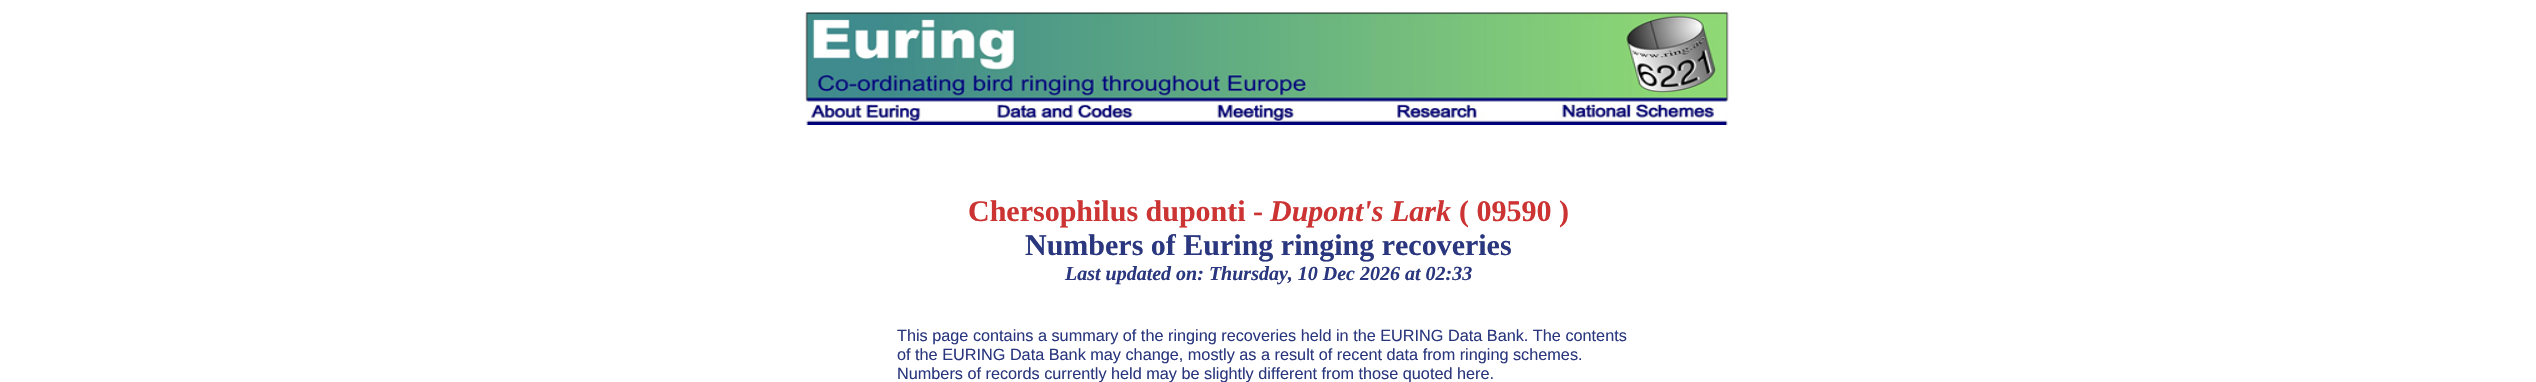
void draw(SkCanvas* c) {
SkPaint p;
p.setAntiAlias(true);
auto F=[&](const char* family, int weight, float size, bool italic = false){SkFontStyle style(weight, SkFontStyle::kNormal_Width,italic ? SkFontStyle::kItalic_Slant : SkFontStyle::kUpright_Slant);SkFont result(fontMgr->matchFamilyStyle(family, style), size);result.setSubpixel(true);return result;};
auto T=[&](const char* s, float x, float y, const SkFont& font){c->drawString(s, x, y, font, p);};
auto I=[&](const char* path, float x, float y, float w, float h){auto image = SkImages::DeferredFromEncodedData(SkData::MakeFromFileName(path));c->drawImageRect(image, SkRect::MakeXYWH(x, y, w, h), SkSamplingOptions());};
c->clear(0xffffffff);
I("1.png",805,12,924,113);
auto f1 = F("Liberation Serif",700,30);
p.setColor(0xffcc3333);
T("Chersophilus duponti -",968,221,f1);
auto f2 = F("Liberation Serif",700,30,true);
T("Dupont's Lark",1270,221,f2);
T("( 09590 )",1459,221,f1);
p.setColor(0xff2a377e);
T("Numbers of Euring ringing recoveries",1025,255,f1);
auto f3 = F("Liberation Serif",700,20,true);
T("Last updated on: Thursday, 10 Dec 2026 at 02:33",1065,280,f3);
auto f4 = F("Liberation Sans",400,16.25);
T("This page contains a summary of the ringing recoveries held in the EURING Data Bank. The contents",897,341,f4);
T("of the EURING Data Bank may change, mostly as a result of recent data from ringing schemes.",897,360,f4);
T("Numbers of records currently held may be slightly different from those quoted here.",897,379,f4);
}
